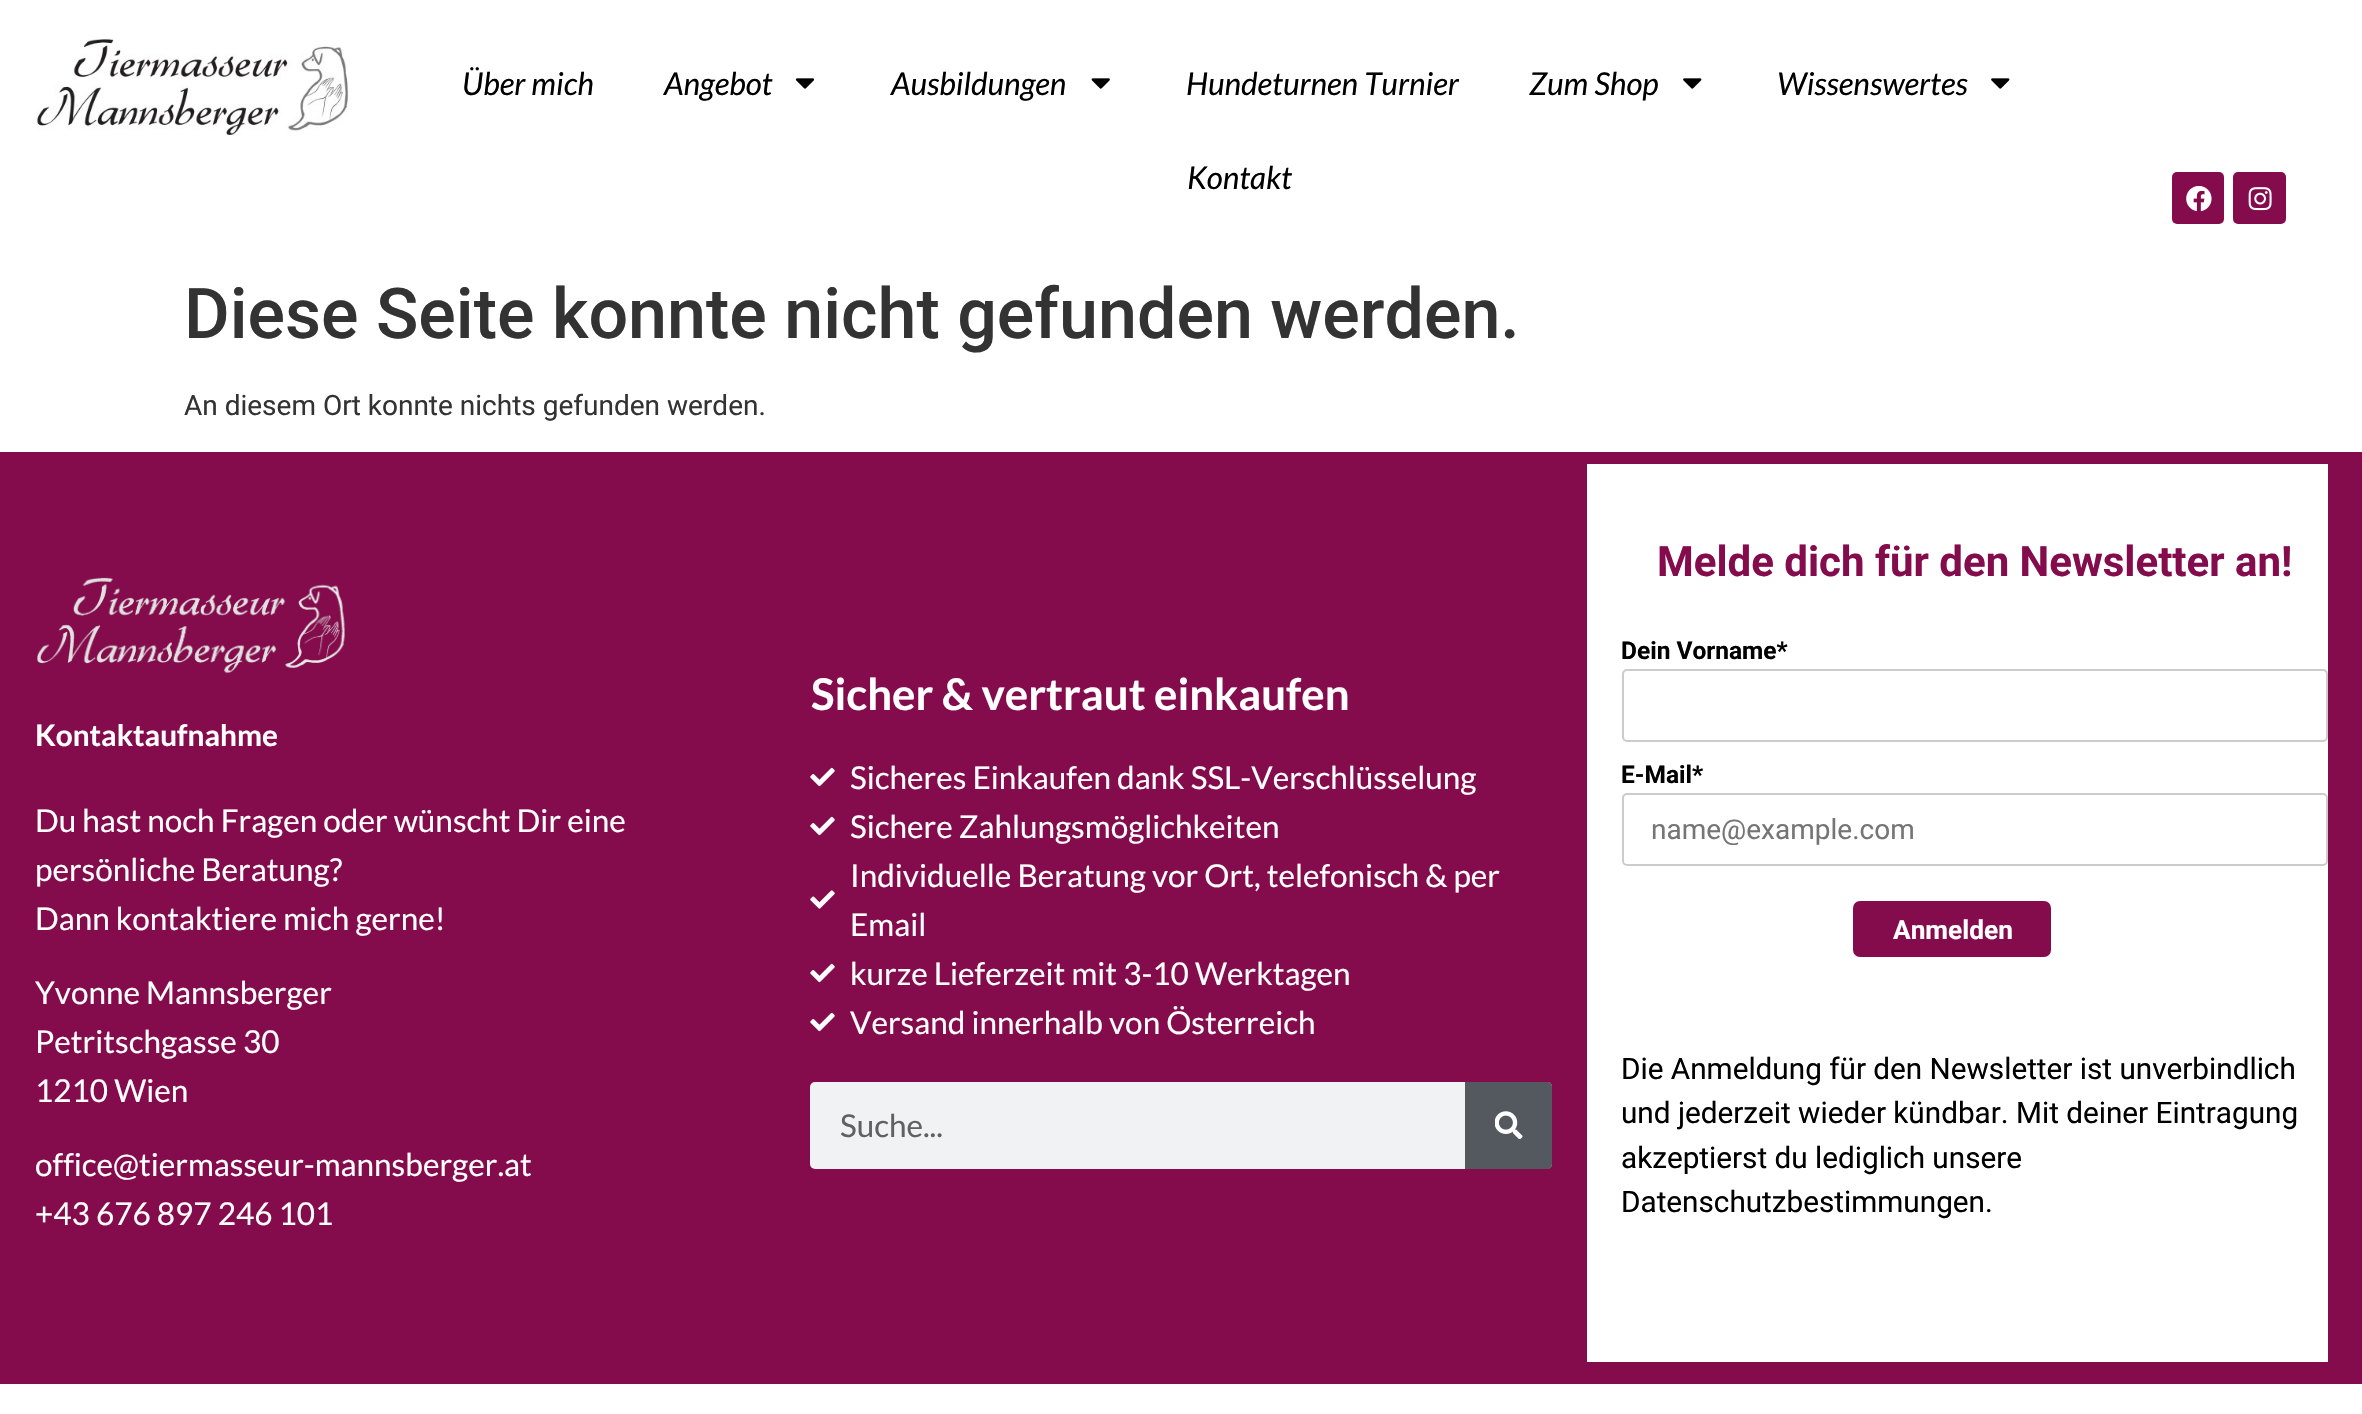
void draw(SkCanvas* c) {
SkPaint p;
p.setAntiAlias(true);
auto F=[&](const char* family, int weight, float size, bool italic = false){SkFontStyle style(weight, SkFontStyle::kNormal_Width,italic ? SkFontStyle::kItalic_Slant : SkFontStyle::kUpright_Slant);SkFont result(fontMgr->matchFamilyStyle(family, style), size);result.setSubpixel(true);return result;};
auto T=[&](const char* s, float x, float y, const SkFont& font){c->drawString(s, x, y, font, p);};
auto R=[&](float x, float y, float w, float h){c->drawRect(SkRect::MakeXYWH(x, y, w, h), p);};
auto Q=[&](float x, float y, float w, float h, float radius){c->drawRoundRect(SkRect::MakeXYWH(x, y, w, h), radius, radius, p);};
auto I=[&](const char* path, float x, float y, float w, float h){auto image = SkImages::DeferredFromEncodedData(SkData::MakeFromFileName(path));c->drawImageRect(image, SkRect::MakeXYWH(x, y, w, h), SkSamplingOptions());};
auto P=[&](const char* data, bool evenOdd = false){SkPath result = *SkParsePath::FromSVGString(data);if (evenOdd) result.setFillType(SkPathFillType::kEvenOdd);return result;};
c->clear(0xffffffff);
I("1.png",35,38,314,98);
auto f1 = F("Lato",400,31.5,true);
p.setColor(0xff000000);
T("Über mich",462,95,f1);
T("Angebot",664,95,f1);
I("2.png",795,78,20,11);
T("Ausbildungen",891,95,f1);
I("3.png",1091,78,19,11);
T("Hundeturnen Turnier",1186,95,f1);
T("Zum Shop",1529,95,f1);
I("4.png",1683,78,19,11);
T("Wissenswertes",1777,95,f1);
I("4.png",1991,78,19,11);
T("Kontakt",1187,189,f1);
p.setColor(0xff840c4c);
Q(2172,172,52,52,5);
I("5.png",2186,186,26,26);
Q(2233,172,53,52,5);
I("6.png",2248,187,24,24);
auto f2 = F("Roboto",500,70);
p.setColor(0xff333333);
T("Diese Seite konnte nicht gefunden werden.",184,338,f2);
auto f3 = F("Roboto",400,28);
T("An diesem Ort konnte nichts gefunden werden.",184,415,f3);
p.setColor(0xff840c4c);
R(0,452,2362,932);
I("7.png",37,577,308,96);
auto f4 = F("Lato",700,29.75);
p.setColor(0xffffffff);
T("Kontaktaufnahme",35,746,f4);
auto f5 = F("Lato",400,31.5);
T("Du hast noch Fragen oder wünscht Dir eine",35,832,f5);
T("persönliche Beratung?",35,881,f5);
T("Dann kontaktiere mich gerne!",35,930,f5);
T("Yvonne Mannsberger",35,1004,f5);
T("Petritschgasse 30",35,1053,f5);
T("1210 Wien",35,1102,f5);
T("office@tiermasseur-mannsberger.at",35,1176,f5);
T("+43 676 897 246 101",35,1225,f5);
auto f6 = F("Lato",700,43.75);
T("Sicher & vertraut einkaufen",811,710,f6);
I("8.png",810,767,25,20);
T("Sicheres Einkaufen dank SSL-Verschlüsselung",850,789,f5);
I("8.png",810,816,25,20);
T("Sichere Zahlungsmöglichkeiten",850,838,f5);
I("9.png",810,890,25,19);
T("Individuelle Beratung vor Ort, telefonisch & per",850,887,f5);
T("Email",850,936,f5);
I("8.png",810,963,25,20);
T("kurze Lieferzeit mit 3-10 Werktagen",850,985,f5);
I("8.png",810,1012,25,20);
T("Versand innerhalb von Österreich",850,1034,f5);
p.setColor(0xfff1f2f3);
Q(810,1082,742,87,5);
p.setColor(0xff606161);
T("Suche...",840,1137,f5);
p.setColor(0xff54595f);
c->drawPath(P("M1465 1082h82c3 0 5 2 5 5v77c0 3-2 5-5 5h-82z"),p);
I("10.png",1495,1111,28,28);
p.setColor(0xffffffff);
R(1587,464,741,898);
auto f7 = F("Roboto",700,42);
p.setColor(0xff840c4d);
T("Melde dich für den Newsletter an!",1657,576,f7);
auto f8 = F("Roboto",700,24.5);
p.setColor(0xff000000);
T("Dein Vorname*",1621,659,f8);
p.setStroke(true);
p.setStrokeWidth(2);
p.setColor(0xffcccccc);
c->drawRoundRect(SkRect::MakeXYWH(1623,670,704,71),4,4,p);
p.setStroke(false);
p.setColor(0xff000000);
T("E-Mail*",1621,783,f8);
p.setStroke(true);
p.setColor(0xffcccccc);
c->drawRoundRect(SkRect::MakeXYWH(1623,794,704,71),4,4,p);
c->save();
c->clipRect(SkRect::MakeXYWH(1652,812,646,33));
p.setStroke(false);
p.setColor(0xff757575);
T("name@example.com",1651,839,f3);
c->restore();
p.setColor(0xff840c4c);
Q(1853,901,198,56,7);
auto f9 = F("Roboto",700,26.25);
p.setColor(0xffffffff);
T("Anmelden",1893,939,f9);
auto f10 = F("Roboto",400,29.7);
p.setColor(0xff000000);
T("Die Anmeldung für den Newsletter ist unverbindlich",1621,1079,f10);
T("und jederzeit wieder kündbar. Mit deiner Eintragung",1621,1123,f10);
T("akzeptierst du lediglich unsere",1621,1168,f10);
T("Datenschutzbestimmungen.",1621,1212,f10);
}
